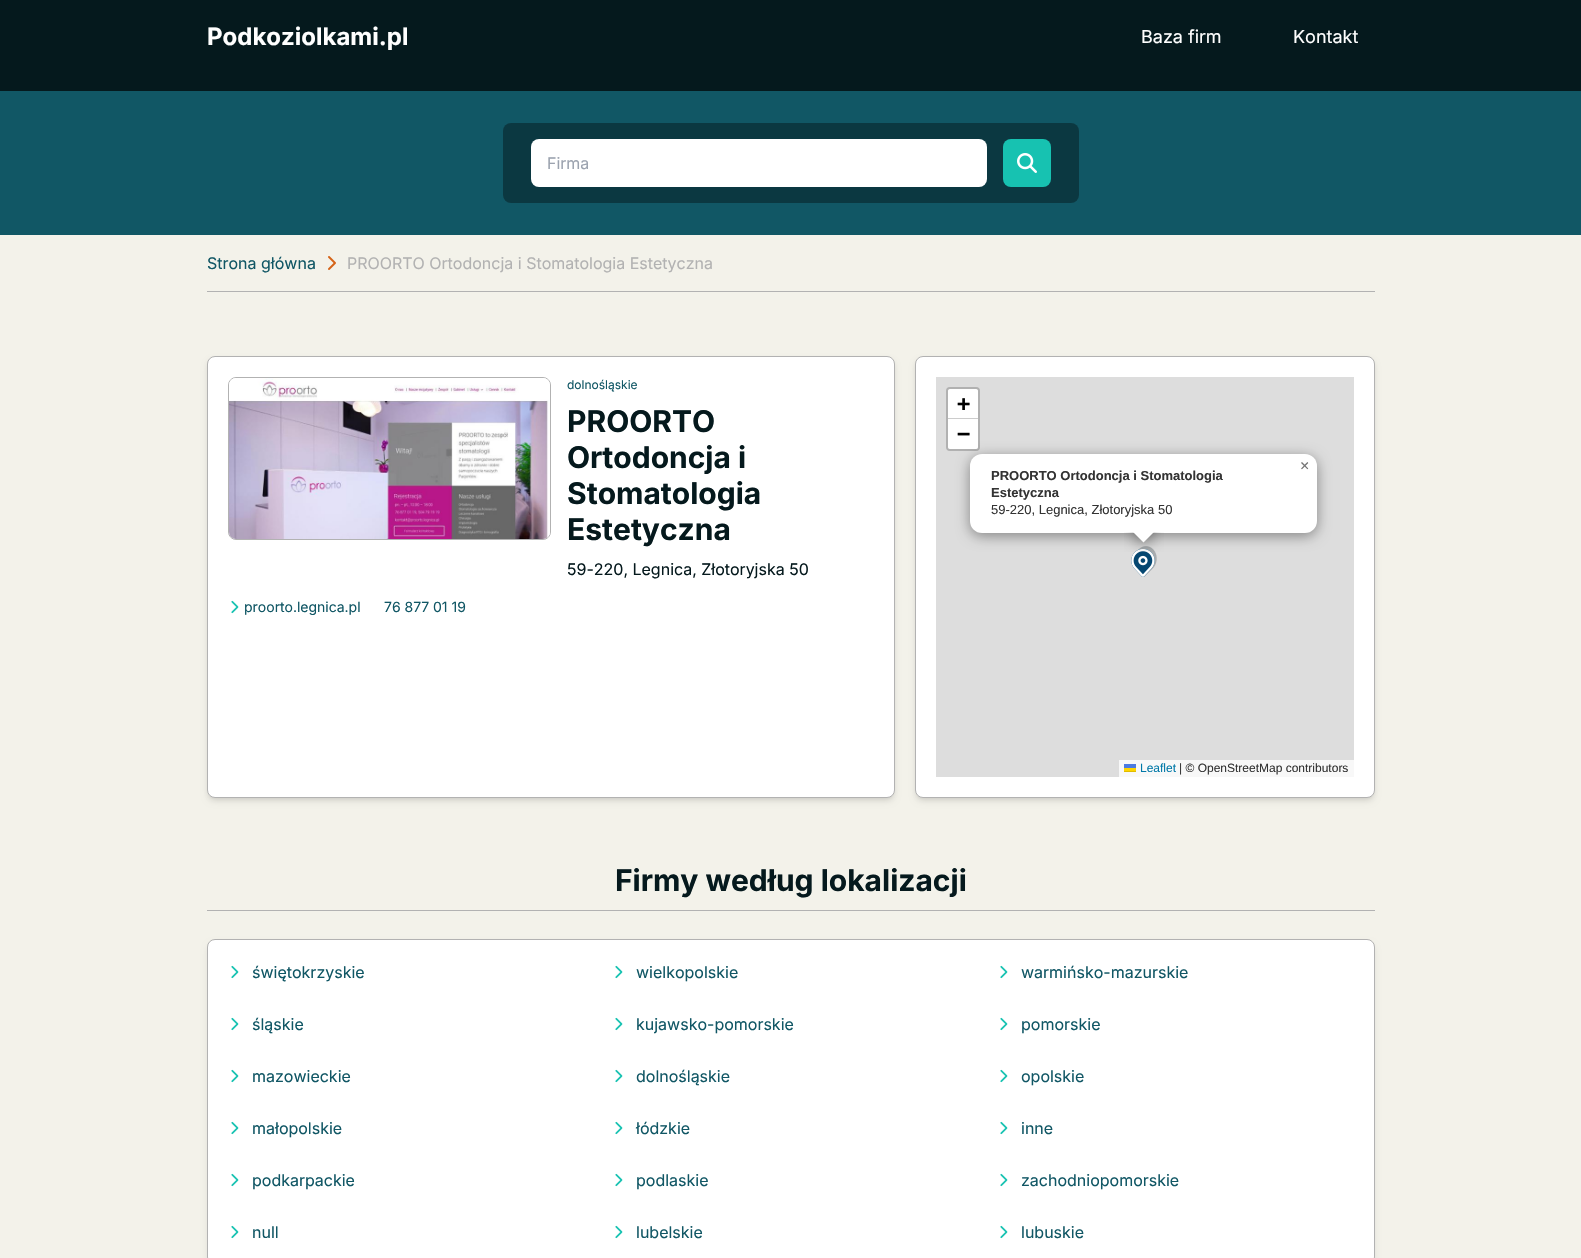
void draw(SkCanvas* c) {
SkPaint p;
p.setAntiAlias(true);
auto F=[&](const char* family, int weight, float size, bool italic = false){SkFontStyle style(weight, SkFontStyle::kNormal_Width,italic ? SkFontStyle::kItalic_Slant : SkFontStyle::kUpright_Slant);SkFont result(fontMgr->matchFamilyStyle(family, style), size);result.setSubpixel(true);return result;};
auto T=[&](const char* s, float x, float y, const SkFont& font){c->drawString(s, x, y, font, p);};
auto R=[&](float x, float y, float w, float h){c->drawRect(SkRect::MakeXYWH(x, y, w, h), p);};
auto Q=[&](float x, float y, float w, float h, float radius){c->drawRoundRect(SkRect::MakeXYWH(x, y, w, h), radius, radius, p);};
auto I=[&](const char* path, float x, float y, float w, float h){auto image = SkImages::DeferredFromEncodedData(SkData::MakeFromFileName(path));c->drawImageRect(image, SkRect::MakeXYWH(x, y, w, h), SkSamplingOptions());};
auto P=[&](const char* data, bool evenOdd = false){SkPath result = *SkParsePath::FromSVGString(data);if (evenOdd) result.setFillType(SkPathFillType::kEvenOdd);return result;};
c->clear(0xfff3f2ea);
p.setColor(0xff05191d);
R(0,0,1581,91);
auto f1 = F("Inter",700,24);
p.setColor(0xffffffff);
T("Podkoziolkami.pl",207,45,f1);
auto f2 = F("Inter",400,18);
T("Baza firm",1141,43,f2);
T("Kontakt",1293,43,f2);
p.setColor(0xff115765);
R(0,91,1581,144);
p.setColor(0xff0b3841);
Q(503,123,576,80,8);
p.setColor(0xffffffff);
Q(531,139,456,48,8);
auto f3 = F("Inter",400,16);
p.setColor(0xff9ca3af);
T("Firma",547,169,f3);
p.setColor(0xff17c2b1);
Q(1003,139,48,48,8);
I("1.png",1017,153,20,20);
p.setColor(0xffb2b2b2);
R(207,291,1168,1);
p.setColor(0xff115765);
T("Strona główna",207,269,f3);
I("2.png",328,256,8,14);
p.setColor(0xffb2b2b2);
T("PROORTO Ortodoncja i Stomatologia Estetyczna",347,269,f3);
p.setColor(0x1a000000);
p.setMaskFilter(SkMaskFilter::MakeBlur(kNormal_SkBlurStyle, 2));
c->drawRoundRect(SkRect::MakeXYWH(209,360,684,438),6,6,p);
p.setMaskFilter(nullptr);
p.setMaskFilter(SkMaskFilter::MakeBlur(kNormal_SkBlurStyle, 3));
c->drawRoundRect(SkRect::MakeXYWH(208,361,686,440),7,7,p);
p.setMaskFilter(nullptr);
p.setColor(0xffffffff);
c->drawRoundRect(SkRect::MakeXYWH(207.5,356.5,687,441),7.5,7.5,p);
p.setStroke(true);
p.setStrokeWidth(1);
p.setColor(0xffb2b2b2);
c->drawRoundRect(SkRect::MakeXYWH(207.5,356.5,687,441),7.5,7.5,p);
c->drawRoundRect(SkRect::MakeXYWH(228.5,377.5,322,162),7.5,7.5,p);
I("3.png",229,378,321,161);
auto f4 = F("Inter",400,12);
p.setStroke(false);
p.setColor(0xff115765);
T("dolnośląskie",567,389,f4);
auto f5 = F("Inter",700,30);
p.setColor(0xff05191d);
T("PROORTO",567,432,f5);
T("Ortodoncja i",567,468,f5);
T("Stomatologia",567,504,f5);
T("Estetyczna",567,540,f5);
T("59-220, Legnica, Złotoryjska 50",567,575,f3);
I("4.png",231,600,8,14);
auto f6 = F("Inter",400,14);
p.setColor(0xff115765);
T("proorto.legnica.pl",244,612,f6);
T("76 877 01 19",384,612,f6);
p.setColor(0x1a000000);
p.setMaskFilter(SkMaskFilter::MakeBlur(kNormal_SkBlurStyle, 2));
c->drawRoundRect(SkRect::MakeXYWH(917,360,456,438),6,6,p);
p.setMaskFilter(nullptr);
p.setMaskFilter(SkMaskFilter::MakeBlur(kNormal_SkBlurStyle, 3));
c->drawRoundRect(SkRect::MakeXYWH(916,361,458,440),7,7,p);
p.setMaskFilter(nullptr);
p.setColor(0xffffffff);
c->drawRoundRect(SkRect::MakeXYWH(915.5,356.5,459,441),7.5,7.5,p);
p.setStroke(true);
p.setColor(0xffb2b2b2);
c->drawRoundRect(SkRect::MakeXYWH(915.5,356.5,459,441),7.5,7.5,p);
p.setStroke(false);
p.setColor(0xffdddddd);
R(936,377,418,400);
I("5.png",1131,546,26,31);
p.setColor(0x66000000);
p.setMaskFilter(SkMaskFilter::MakeBlur(kNormal_SkBlurStyle, 7));
c->drawRoundRect(SkRect::MakeXYWH(970,457,347,79),12,12,p);
p.setMaskFilter(nullptr);
p.setStroke(true);
p.setStrokeWidth(2);
p.setColor(0x33000000);
c->drawRoundRect(SkRect::MakeXYWH(947,388,32,62),3,3,p);
p.setStroke(false);
p.setColor(0xffffffff);
c->drawPath(P("M950 389h26c1 0 2 1 2 2v27h-30v-27c0-1 1-2 2-2z"),p);
p.setColor(0xffcccccc);
R(948,418,30,1);
auto f7 = F("DejaVu Sans Mono",700,22);
p.setColor(0xff000000);
T("+",957,411,f7);
p.setColor(0xffffffff);
c->drawPath(P("M948 419h30v28c0 1-1 2-2 2h-26c-1 0-2-1-2-2z"),p);
p.setColor(0xff000000);
T("−",957,441,f7);
p.setColor(0xfff8f8f8);
R(1119,760,235,17);
auto f8 = F("Liberation Sans",400,12);
p.setColor(0xff0078a8);
T("Leaflet",1140,772,f8);
p.setColor(0xff4c7be1);
R(1124,764,12,4);
p.setColor(0xffffd500);
R(1124,768,12,3);
p.setColor(0xffe0bc00);
R(1124,771,12,1);
p.setColor(0xff333333);
T("| © OpenStreetMap contributors",1179,772,f8);
p.setColor(0xffffffff);
Q(970,454,347,79,12);
auto f9 = F("Liberation Sans",400,16);
p.setColor(0xff757575);
T("×",1300,471,f9);
auto f10 = F("Liberation Sans",700,13);
p.setColor(0xff333333);
T("PROORTO Ortodoncja i Stomatologia",991,480,f10);
T("Estetyczna",991,497,f10);
auto f11 = F("Liberation Sans",400,13);
T("59-220, Legnica, Złotoryjska 50",991,514,f11);
c->save();
c->clipRect(SkRect::MakeXYWH(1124,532,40,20));
p.setColor(0x66000000);
p.setMaskFilter(SkMaskFilter::MakeBlur(kNormal_SkBlurStyle, 7));
c->drawRect(SkRect::MakeXYWH(1135,525,17,17),p);
p.setMaskFilter(nullptr);
c->restore();
c->save();
c->clipRect(SkRect::MakeXYWH(1124,532,40,20));
p.setColor(0xffffffff);
c->drawPath(P("M1143.5 518.5l12 12l-12 12l-12-12z"),p);
c->restore();
p.setColor(0xffb2b2b2);
R(207,910,1168,1);
p.setColor(0xff05191d);
T("Firmy według lokalizacji",615,891,f5);
p.setColor(0x1a000000);
p.setMaskFilter(SkMaskFilter::MakeBlur(kNormal_SkBlurStyle, 3));
c->drawRoundRect(SkRect::MakeXYWH(208,944,1166,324),7,7,p);
p.setMaskFilter(nullptr);
p.setColor(0xffffffff);
c->drawRoundRect(SkRect::MakeXYWH(207.5,939.5,1167,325),7.5,7.5,p);
p.setStroke(true);
p.setStrokeWidth(1);
p.setColor(0xffb2b2b2);
c->drawRoundRect(SkRect::MakeXYWH(207.5,939.5,1167,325),7.5,7.5,p);
I("4.png",231,965,8,14);
p.setStroke(false);
p.setColor(0xff115765);
T("świętokrzyskie",252,978,f3);
I("4.png",615,965,8,14);
T("wielkopolskie",636,978,f3);
I("4.png",1000,965,8,14);
T("warmińsko-mazurskie",1021,978,f3);
I("4.png",231,1017,8,14);
T("śląskie",252,1030,f3);
I("4.png",615,1017,8,14);
T("kujawsko-pomorskie",636,1030,f3);
I("4.png",1000,1017,8,14);
T("pomorskie",1021,1030,f3);
I("4.png",231,1069,8,14);
T("mazowieckie",252,1082,f3);
I("4.png",615,1069,8,14);
T("dolnośląskie",636,1082,f3);
I("4.png",1000,1069,8,14);
T("opolskie",1021,1082,f3);
I("4.png",231,1121,8,14);
T("małopolskie",252,1134,f3);
I("4.png",615,1121,8,14);
T("łódzkie",636,1134,f3);
I("4.png",1000,1121,8,14);
T("inne",1021,1134,f3);
I("4.png",231,1173,8,14);
T("podkarpackie",252,1186,f3);
I("4.png",615,1173,8,14);
T("podlaskie",636,1186,f3);
I("4.png",1000,1173,8,14);
T("zachodniopomorskie",1021,1186,f3);
I("4.png",231,1225,8,14);
T("null",252,1238,f3);
I("4.png",615,1225,8,14);
T("lubelskie",636,1238,f3);
I("4.png",1000,1225,8,14);
T("lubuskie",1021,1238,f3);
}
